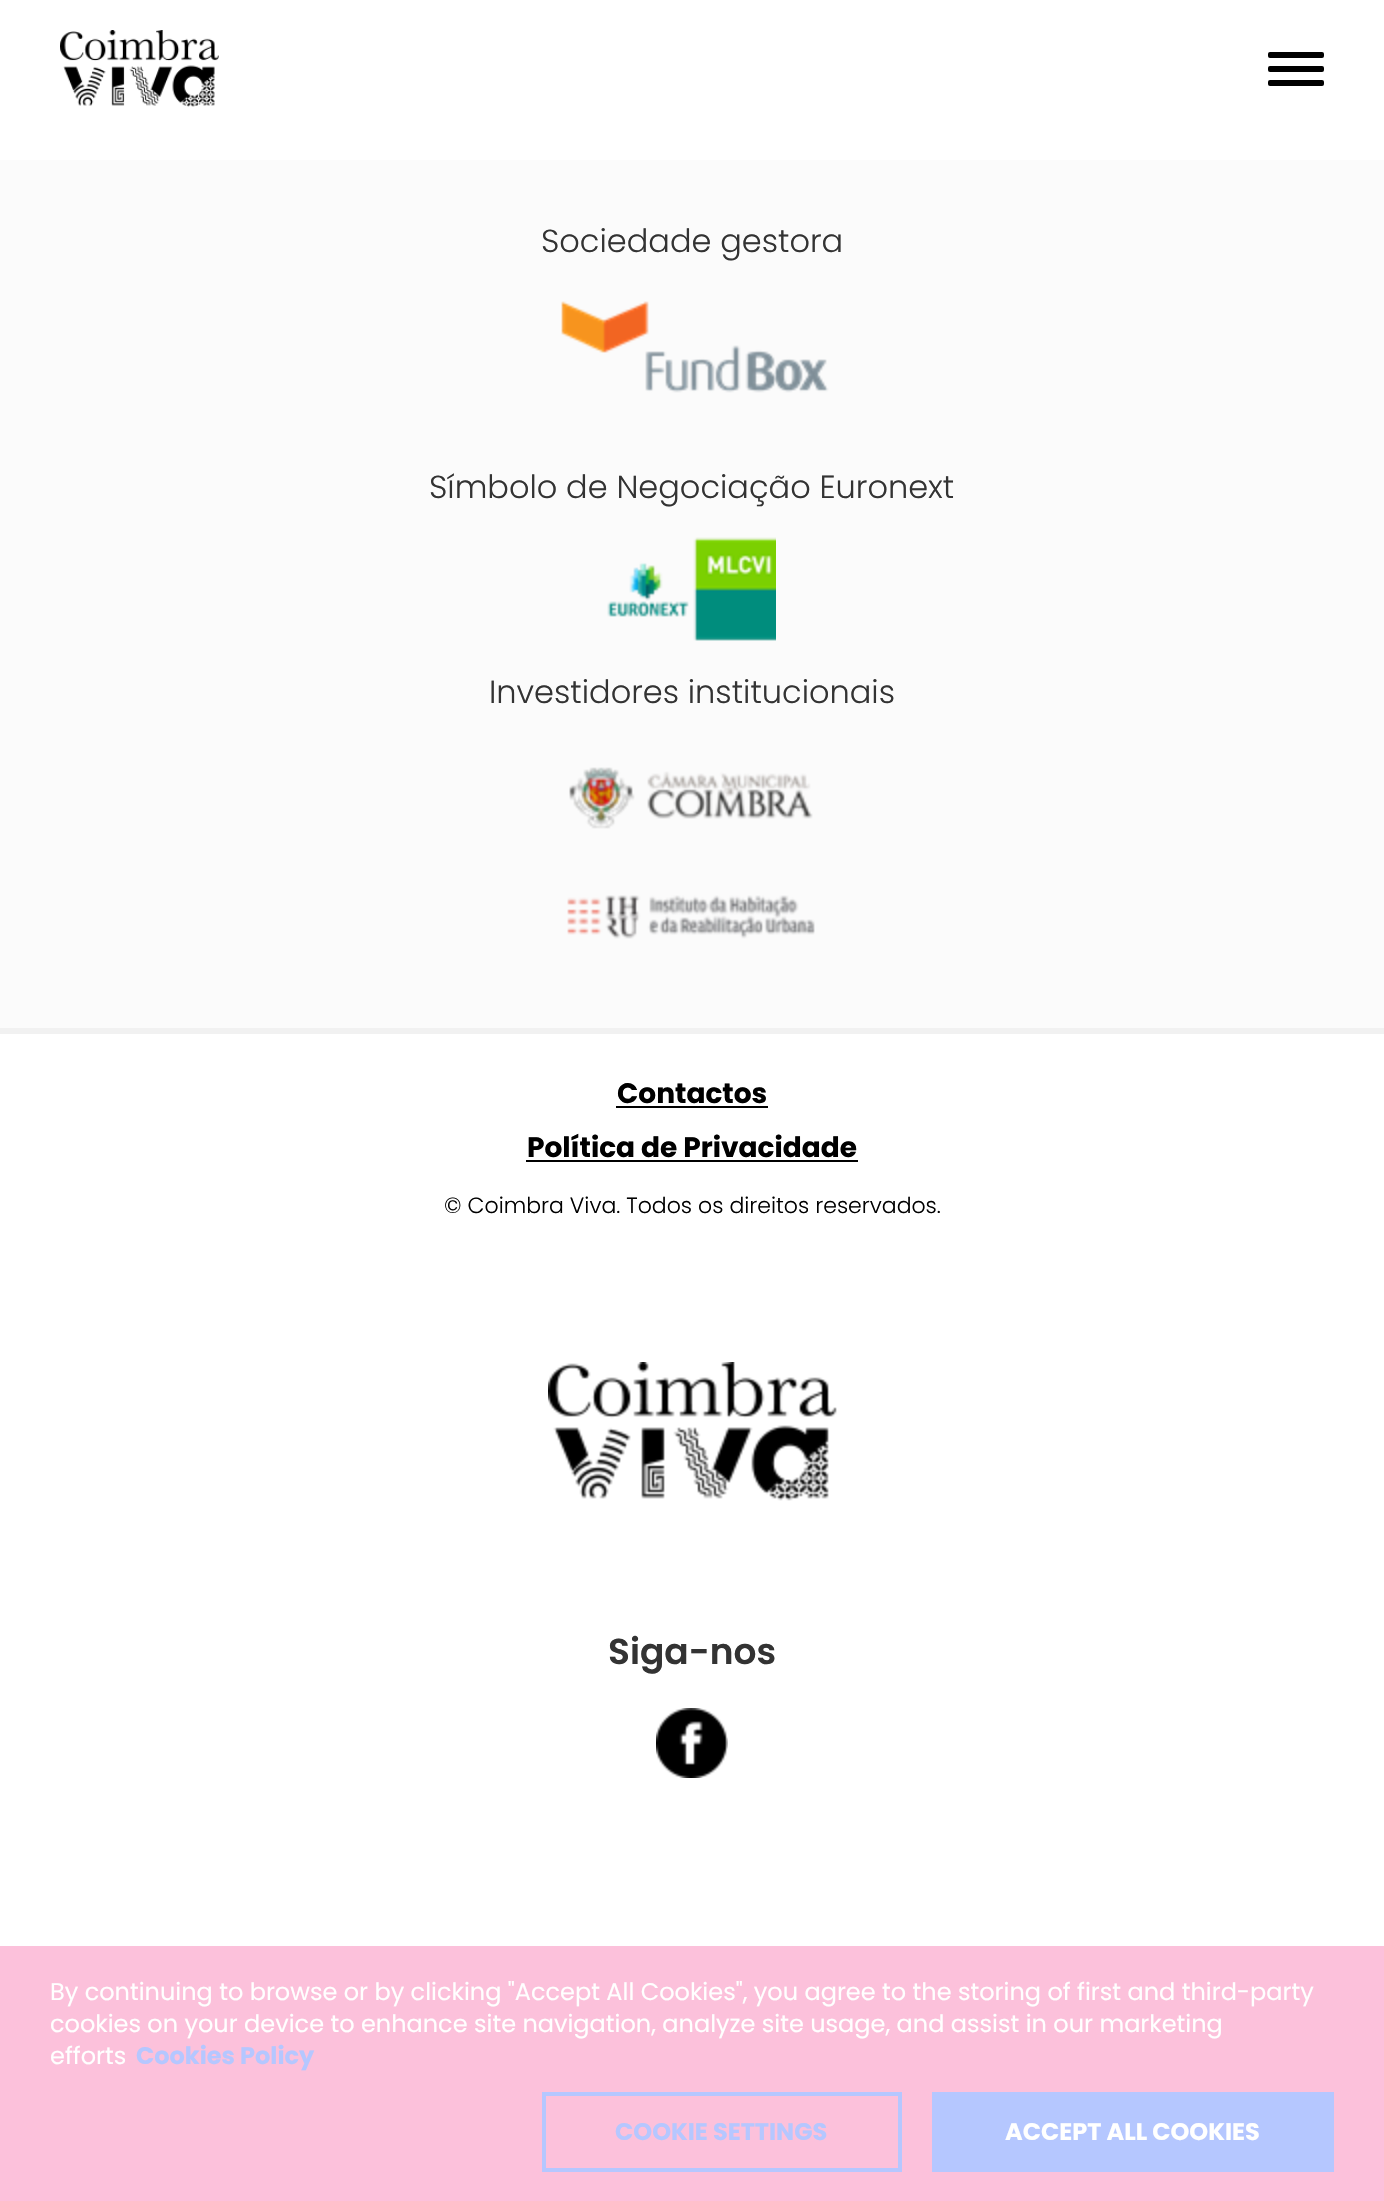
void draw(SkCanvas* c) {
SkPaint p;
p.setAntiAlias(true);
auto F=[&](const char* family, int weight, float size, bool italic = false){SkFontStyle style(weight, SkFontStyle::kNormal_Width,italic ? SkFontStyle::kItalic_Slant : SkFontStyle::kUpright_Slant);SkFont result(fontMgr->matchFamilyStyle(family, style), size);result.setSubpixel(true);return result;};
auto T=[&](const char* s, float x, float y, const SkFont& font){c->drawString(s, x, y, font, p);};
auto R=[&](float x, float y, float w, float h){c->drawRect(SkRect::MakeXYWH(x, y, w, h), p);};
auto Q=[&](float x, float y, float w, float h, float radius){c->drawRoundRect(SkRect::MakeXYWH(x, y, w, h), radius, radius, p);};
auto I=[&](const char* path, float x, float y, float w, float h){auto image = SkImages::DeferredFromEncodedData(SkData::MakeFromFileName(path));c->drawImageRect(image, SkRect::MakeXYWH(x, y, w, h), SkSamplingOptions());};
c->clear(0xffffffff);
I("1.png",60,30,159,77);
p.setColor(0xff000000);
Q(1268,52,56,6,2);
Q(1268,66,56,6,2);
Q(1268,80,56,6,2);
p.setColor(0xfffbfbfb);
R(0,160,1384,868);
auto f1 = F("Poppins",300,32);
p.setColor(0xff333333);
T("Sociedade gestora",541,252,f1);
I("2.png",561,301,268,92);
T("Símbolo de Negociação Euronext",429,498,f1);
I("3.png",607,537,169,104);
T("Investidores institucionais",489,703,f1);
I("4.png",569,767,244,62);
I("5.png",567,895,248,44);
p.setColor(0xfff1f1f1);
R(0,1028,1384,6);
auto f2 = F("Poppins",700,28);
p.setColor(0xff000000);
T("Contactos",617,1103,f2);
R(616,1106,152,2);
T("Política de Privacidade",527,1157,f2);
R(526,1160,332,2);
auto f3 = F("Poppins",300,22);
T("© Coimbra Viva. Todos os direitos reservados.",444,1213,f3);
I("6.png",548,1362,289,139);
auto f4 = F("Poppins",600,36);
p.setColor(0xff333333);
T("Siga-nos",608,1664,f4);
I("7.png",656,1708,72,70);
p.setColor(0xfffcc1db);
R(0,1946,1384,255);
auto f5 = F("Poppins",400,24);
p.setColor(0xffffffff);
T("By continuing to browse or by clicking \"Accept All Cookies\", you agree to the storing of first and third-party",50,2000,f5);
T("cookies on your device to enhance site navigation, analyze site usage, and assist in our marketing",50,2032,f5);
T("efforts",50,2064,f5);
auto f6 = F("Poppins",700,24);
p.setColor(0xffb5c7ff);
T("Cookies Policy",136,2064,f6);
p.setStroke(true);
p.setStrokeWidth(4);
c->drawRect(SkRect::MakeXYWH(544,2094,356,76),p);
p.setStroke(false);
T("COOKIE SETTINGS",615,2140,f6);
R(932,2092,402,80);
p.setColor(0xffffffff);
T("ACCEPT ALL COOKIES",1005,2140,f6);
}
